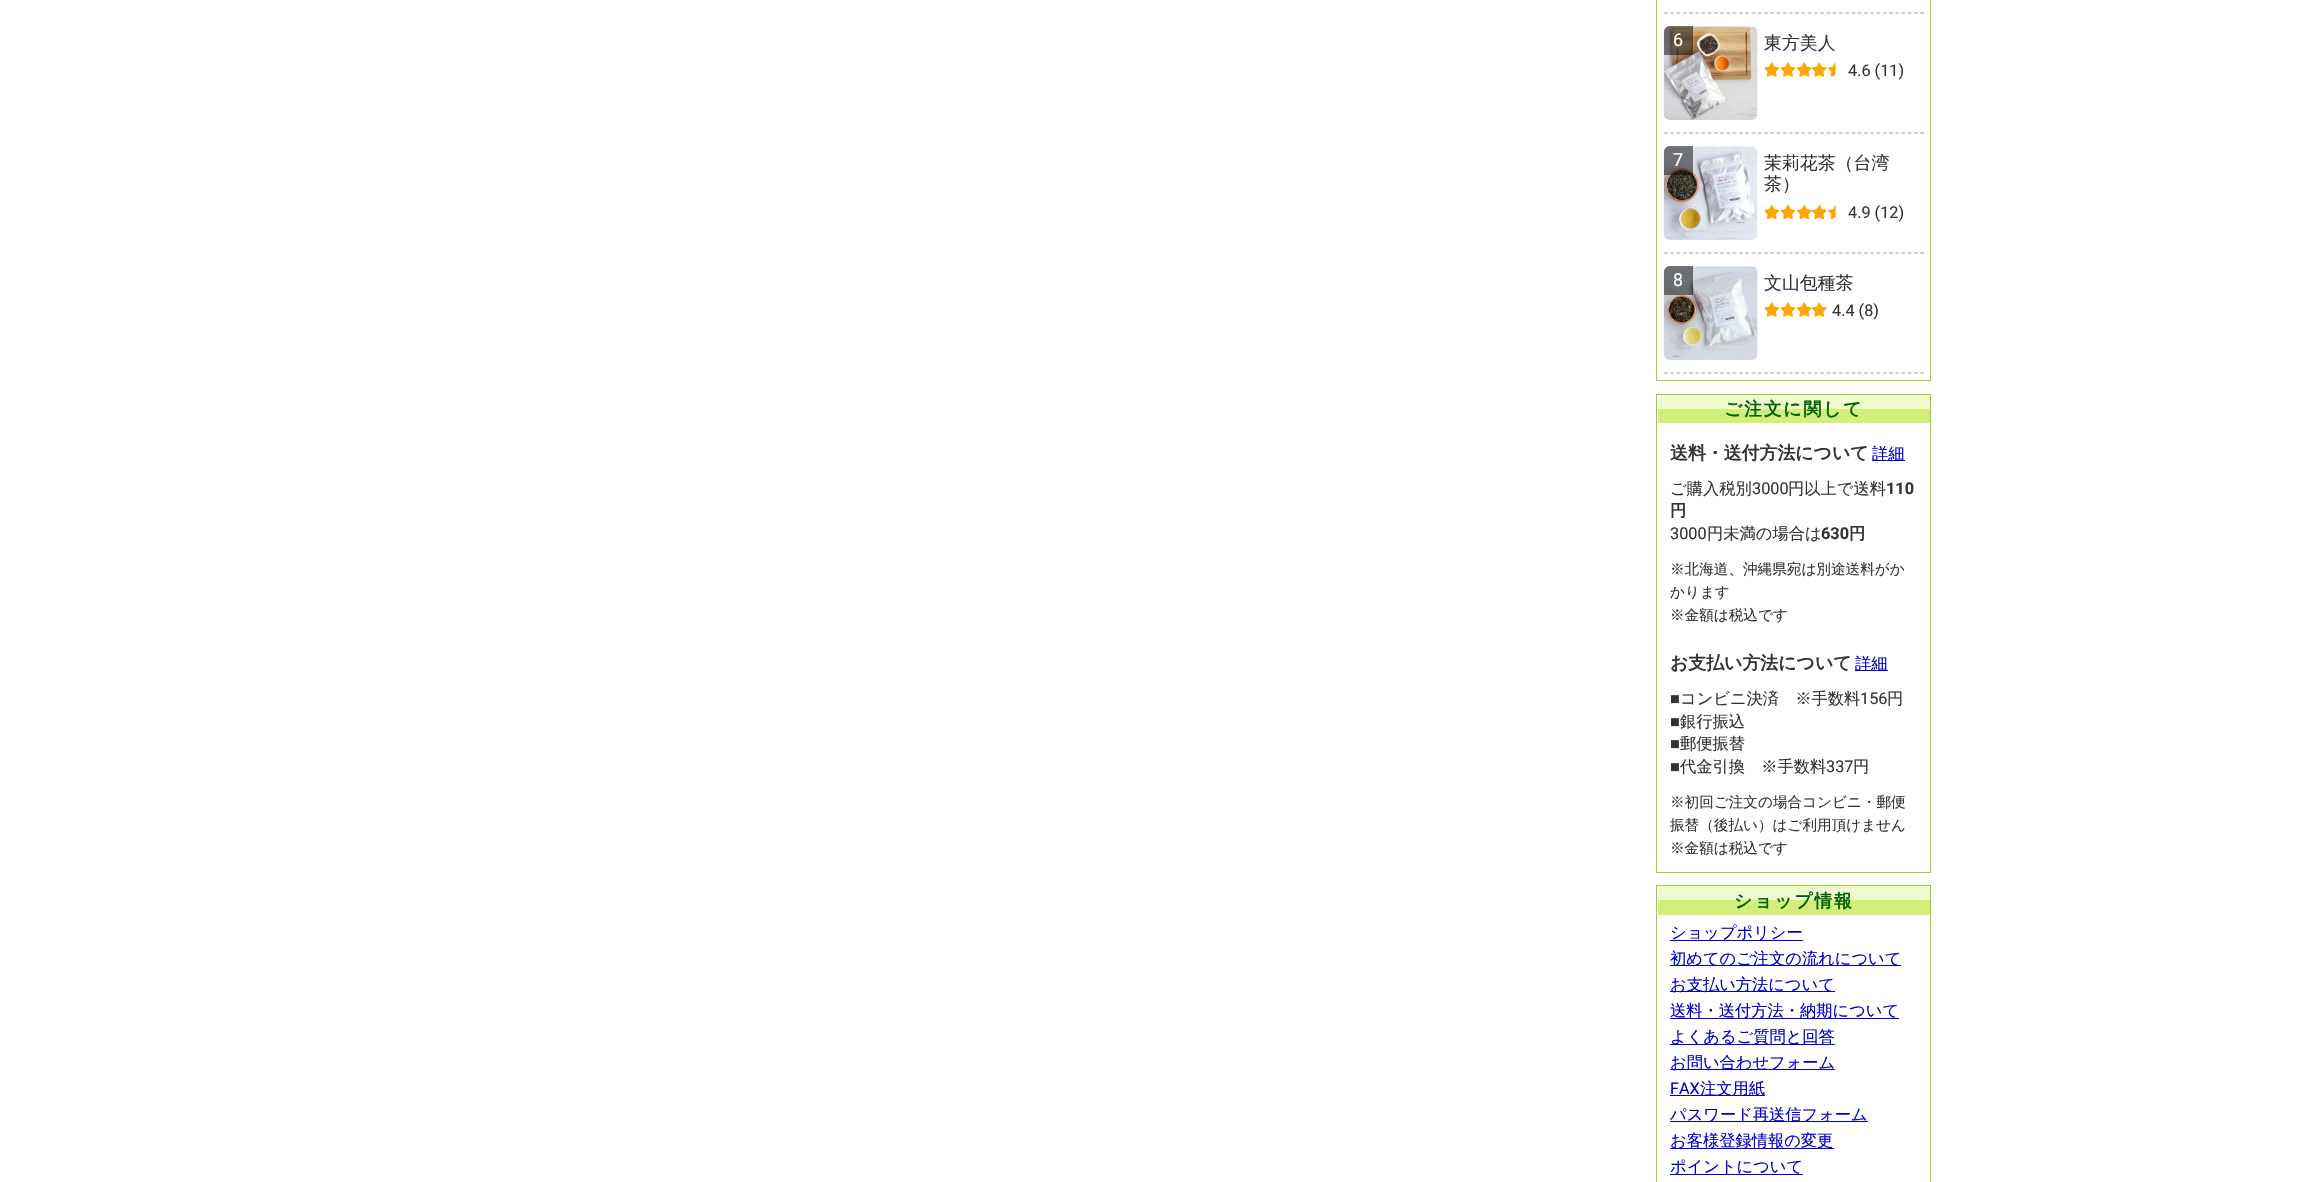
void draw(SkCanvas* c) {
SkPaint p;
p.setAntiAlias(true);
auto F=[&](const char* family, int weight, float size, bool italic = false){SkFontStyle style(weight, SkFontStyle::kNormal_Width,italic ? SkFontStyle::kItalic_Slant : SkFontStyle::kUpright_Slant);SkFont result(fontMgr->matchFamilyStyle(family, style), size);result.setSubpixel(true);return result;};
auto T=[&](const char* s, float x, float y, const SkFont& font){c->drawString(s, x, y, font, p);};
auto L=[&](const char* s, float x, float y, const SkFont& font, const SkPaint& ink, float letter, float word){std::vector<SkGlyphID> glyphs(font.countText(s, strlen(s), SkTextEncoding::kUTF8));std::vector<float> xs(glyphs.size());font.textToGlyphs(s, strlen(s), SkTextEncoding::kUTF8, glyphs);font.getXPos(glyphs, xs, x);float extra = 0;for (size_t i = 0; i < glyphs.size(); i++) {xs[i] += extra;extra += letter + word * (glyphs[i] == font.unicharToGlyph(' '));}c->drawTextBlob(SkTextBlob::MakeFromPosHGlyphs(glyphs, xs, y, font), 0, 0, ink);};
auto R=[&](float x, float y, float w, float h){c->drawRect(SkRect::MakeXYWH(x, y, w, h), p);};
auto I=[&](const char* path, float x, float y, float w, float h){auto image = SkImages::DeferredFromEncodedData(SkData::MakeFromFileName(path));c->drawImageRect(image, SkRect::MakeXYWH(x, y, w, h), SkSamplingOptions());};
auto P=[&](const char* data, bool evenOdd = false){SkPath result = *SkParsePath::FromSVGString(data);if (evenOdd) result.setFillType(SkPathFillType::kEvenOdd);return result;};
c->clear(0xffffffff);
p.setStroke(true);
p.setStrokeWidth(1);
p.setColor(0xff9acd32);
c->drawRect(SkRect::MakeXYWH(1656.5,-.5,274,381),p);
p.setStrokeWidth(1.2);
p.setColor(0xff999999);
p.setPathEffect(SkDashPathEffect::Make({{3.75f,2.5f}}, 0));
c->drawPath(P("M1664 13h260"),p);
p.setPathEffect(nullptr);
I("1.png",1663,26,95,94);
p.setStroke(false);
p.setColor(0x80000000);
c->drawPath(P("M1670 26h23v29h-29v-23c0-3.5 2.5-6 6-6z"),p);
auto f1 = F("Roboto",400,17.9);
p.setColor(0xffffffff);
T("6",1673,46,f1);
auto f2 = F("WenQuanYi Zen Hei",500,17.9);
p.setColor(0xff333333);
T("東方美人",1764,49,f2);
I("2.png",1764,62,16,15);
I("3.png",1780,62,16,15);
I("4.png",1796,62,16,15);
I("5.png",1812,62,15,15);
I("6.png",1828,62,8,15);
auto f3 = F("Roboto",400,16.25);
T("4.6 (11)",1848,76,f3);
p.setStroke(true);
p.setColor(0xff999999);
p.setPathEffect(SkDashPathEffect::Make({{3.75f,2.5f}}, 0));
c->drawPath(P("M1664 133h260"),p);
p.setPathEffect(nullptr);
I("7.png",1663,146,95,94);
p.setStroke(false);
p.setColor(0x80000000);
c->drawPath(P("M1670 146h23v29h-29v-23c0-3.5 2.5-6 6-6z"),p);
p.setColor(0xffffffff);
T("7",1673,166,f1);
p.setColor(0xff333333);
T("茉莉花茶（台湾",1764,169,f2);
T("茶）",1764,190,f2);
I("8.png",1764,205,16,15);
I("9.png",1780,205,16,15);
I("10.png",1796,205,16,15);
I("11.png",1812,205,15,15);
I("12.png",1828,205,8,15);
T("4.9 (12)",1848,218,f3);
p.setStroke(true);
p.setColor(0xff999999);
p.setPathEffect(SkDashPathEffect::Make({{3.75f,2.5f}}, 0));
c->drawPath(P("M1664 253h260"),p);
p.setPathEffect(nullptr);
I("13.png",1663,266,95,94);
p.setStroke(false);
p.setColor(0x80000000);
c->drawPath(P("M1670 266h23v29h-29v-23c0-3.5 2.5-6 6-6z"),p);
p.setColor(0xffffffff);
T("8",1673,286,f1);
p.setColor(0xff333333);
T("文山包種茶",1764,289,f2);
I("2.png",1764,302,16,15);
I("3.png",1780,302,16,15);
I("4.png",1796,302,16,15);
I("5.png",1812,302,15,15);
T("4.4 (8)",1832,316,f3);
p.setStroke(true);
p.setColor(0xff999999);
p.setPathEffect(SkDashPathEffect::Make({{3.75f,2.5f}}, 0));
c->drawPath(P("M1664 373h260"),p);
p.setPathEffect(nullptr);
p.setStrokeWidth(1);
p.setColor(0xff9acd32);
c->drawRect(SkRect::MakeXYWH(1656.5,394.5,274,478),p);
p.setStroke(false);
p.setColor(0xffeffbcd);
R(1658,395,272,14);
p.setColor(0xffd2ef7b);
R(1658,409,272,14);
auto f4 = F("WenQuanYi Zen Hei",700,17.9);
p.setColor(0xff006400);
L("ご注文に関して",1724,415,f4,p,1.75,0);
p.setColor(0xff333333);
T("送料・送付方法について",1670,459,f4);
p.setColor(0xff0000cd);
R(1873,460,32,1);
auto f5 = F("WenQuanYi Zen Hei",500,16.25);
T("詳細",1872,459,f5);
p.setColor(0xff333333);
T("ご購入税別",1670,494,f5);
T("3000",1752,494,f3);
T("円以上で送料",1788,494,f5);
auto f6 = F("Roboto",700,16.25);
T("110",1886,494,f6);
auto f7 = F("WenQuanYi Zen Hei",700,16.25);
T("円",1670,516,f7);
T("3000",1670,539,f3);
T("円未満の場合は",1707,539,f5);
T("630",1821,539,f6);
T("円",1849,539,f7);
auto f8 = F("WenQuanYi Zen Hei",500,14.6);
T("※北海道、沖縄県宛は別途送料がか",1670,574,f8);
T("かります",1670,597,f8);
T("※金額は税込です",1670,620,f8);
T("お支払い方法について",1670,669,f4);
p.setColor(0xff0000cd);
R(1855,670,33,1);
T("詳細",1855,669,f5);
auto f9 = F("Liberation Sans",400,16.25);
p.setColor(0xff333333);
T("■",1670,704,f9);
T("コンビニ決済　※手数料",1680,704,f5);
T("156",1860,704,f3);
T("円",1887,704,f5);
T("■",1670,727,f9);
T("銀行振込",1680,727,f5);
T("■",1670,749,f9);
T("郵便振替",1680,749,f5);
T("■",1670,772,f9);
T("代金引換　※手数料",1680,772,f5);
T("337",1826,772,f3);
T("円",1853,772,f5);
T("※初回ご注文の場合コンビニ・郵便",1670,807,f8);
T("振替（後払い）はご利用頂けません",1670,830,f8);
T("※金額は税込です",1670,853,f8);
p.setStroke(true);
p.setColor(0xff9acd32);
c->drawRect(SkRect::MakeXYWH(1656.5,885.5,274,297),p);
p.setStroke(false);
p.setColor(0xffeffbcd);
R(1658,886,272,14);
p.setColor(0xffd2ef7b);
R(1658,900,272,15);
p.setColor(0xff006400);
L("ショップ情報",1734,907,f4,p,1.75,0);
p.setColor(0xff0000cd);
R(1670,940,133,1);
T("ショップポリシー",1670,938,f5);
R(1670,965,231,1);
T("初めてのご注文の流れについて",1670,964,f5);
R(1670,991,165,1);
T("お支払い方法について",1670,990,f5);
R(1670,1018,229,1);
T("送料・送付方法・納期について",1670,1016,f5);
R(1670,1044,165,1);
T("よくあるご質問と回答",1670,1042,f5);
R(1670,1069,165,1);
T("お問い合わせフォーム",1670,1068,f5);
T("FAX",1670,1094,f3);
R(1670,1095,95,1);
T("注文用紙",1700,1094,f5);
R(1670,1121,198,1);
T("パスワード再送信フォーム",1670,1120,f5);
R(1670,1148,164,1);
T("お客様登録情報の変更",1670,1146,f5);
R(1670,1174,133,1);
T("ポイントについて",1670,1172,f5);
}
